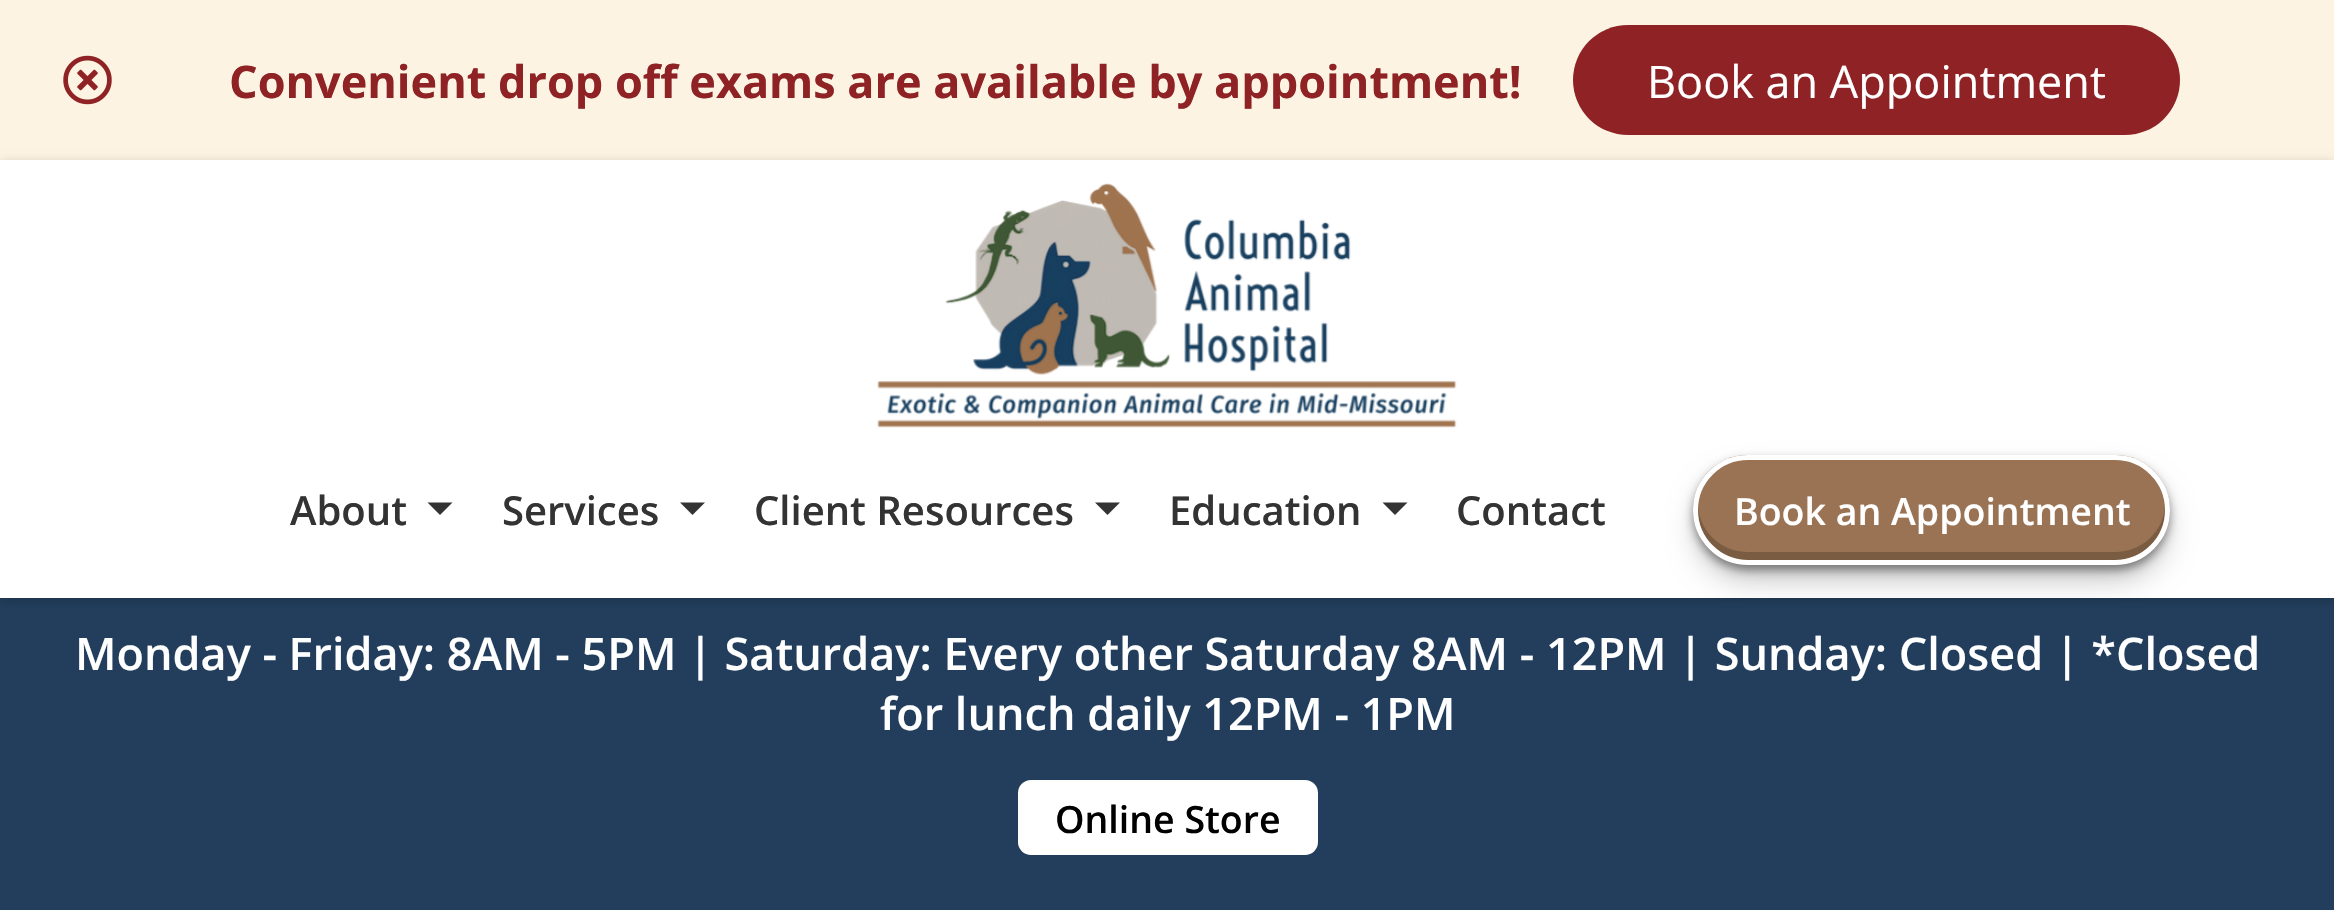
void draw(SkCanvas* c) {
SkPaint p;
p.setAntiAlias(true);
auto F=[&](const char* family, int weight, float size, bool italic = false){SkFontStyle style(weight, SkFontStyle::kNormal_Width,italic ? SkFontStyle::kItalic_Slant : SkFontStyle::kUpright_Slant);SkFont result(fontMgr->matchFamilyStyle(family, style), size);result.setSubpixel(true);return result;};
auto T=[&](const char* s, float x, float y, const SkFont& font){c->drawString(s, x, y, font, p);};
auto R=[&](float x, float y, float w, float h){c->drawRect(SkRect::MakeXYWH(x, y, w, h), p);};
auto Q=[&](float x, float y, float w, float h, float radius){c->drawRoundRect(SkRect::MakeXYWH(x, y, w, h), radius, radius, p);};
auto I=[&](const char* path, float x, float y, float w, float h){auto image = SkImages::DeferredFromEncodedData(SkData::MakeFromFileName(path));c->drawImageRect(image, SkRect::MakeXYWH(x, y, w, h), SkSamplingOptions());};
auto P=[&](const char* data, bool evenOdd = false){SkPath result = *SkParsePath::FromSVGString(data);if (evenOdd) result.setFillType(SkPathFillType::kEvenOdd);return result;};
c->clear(0xff223e5c);
p.setColor(0xfffcf3e2);
R(0,0,2334,160);
I("1.png",63,55,49,50);
auto f1 = F("Open Sans",700,45);
p.setColor(0xff8e2224);
T("Convenient drop off exams are available by appointment!",229,98,f1);
Q(1573,25,607,110,55);
auto f2 = F("Open Sans",400,45);
p.setColor(0xffffffff);
T("Book an Appointment",1647,98,f2);
p.setColor(0x33000000);
p.setMaskFilter(SkMaskFilter::MakeBlur(kNormal_SkBlurStyle, 5));
c->drawRect(SkRect::MakeXYWH(0,163,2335,437),p);
p.setMaskFilter(nullptr);
p.setColor(0xffffffff);
R(0,160,2334,438);
I("2.png",877,183,580,245);
auto f3 = F("Open Sans",600,40);
p.setColor(0xff333333);
T("About",290,525,f3);
c->drawPath(P("M427.5 502.5h25l-12.5 12.5z"),p);
T("Services",502,525,f3);
c->drawPath(P("M680 502.5h25l-12.5 12.5z"),p);
T("Client Resources",754,525,f3);
c->drawPath(P("M1095 502.5h25l-12.5 12.5z"),p);
T("Education",1169,525,f3);
c->drawPath(P("M1382.5 502.5h25l-12.5 12.5z"),p);
T("Contact",1456,525,f3);
p.setColor(0x4d000000);
p.setMaskFilter(SkMaskFilter::MakeBlur(kNormal_SkBlurStyle, 16));
c->drawRoundRect(SkRect::MakeXYWH(1700,480,463,95),47.5,47.5,p);
p.setMaskFilter(nullptr);
p.setColor(0x66000000);
p.setMaskFilter(SkMaskFilter::MakeBlur(kNormal_SkBlurStyle, 5));
c->drawRoundRect(SkRect::MakeXYWH(1693,460,477,110),55,55,p);
p.setMaskFilter(nullptr);
p.setColor(0xff997353);
Q(1693,455,477,110,55);
p.setColor(0xff7a5c42);
c->drawPath(P("M1698 506v4c0 28 22 50 50 50h367c28 0 50-22 50-50v-4c-2 26-23 46-50 46h-367c-27 0-48-20-50-46z"),p);
p.setStroke(true);
p.setStrokeWidth(5);
p.setColor(0xffffffff);
c->drawRoundRect(SkRect::MakeXYWH(1695.5,457.5,472,105),52.5,52.5,p);
auto f4 = F("Open Sans",600,37.5);
p.setStroke(false);
T("Book an Appointment",1734,525,f4);
auto f5 = F("Open Sans",600,45);
T("Monday - Friday: 8AM - 5PM | Saturday: Every other Saturday 8AM - 12PM | Sunday: Closed | *Closed",75,670,f5);
T("for lunch daily 12PM - 1PM",880,730,f5);
Q(1018,780,300,75,13);
p.setColor(0xff000000);
T("Online Store",1055,833,f4);
}
